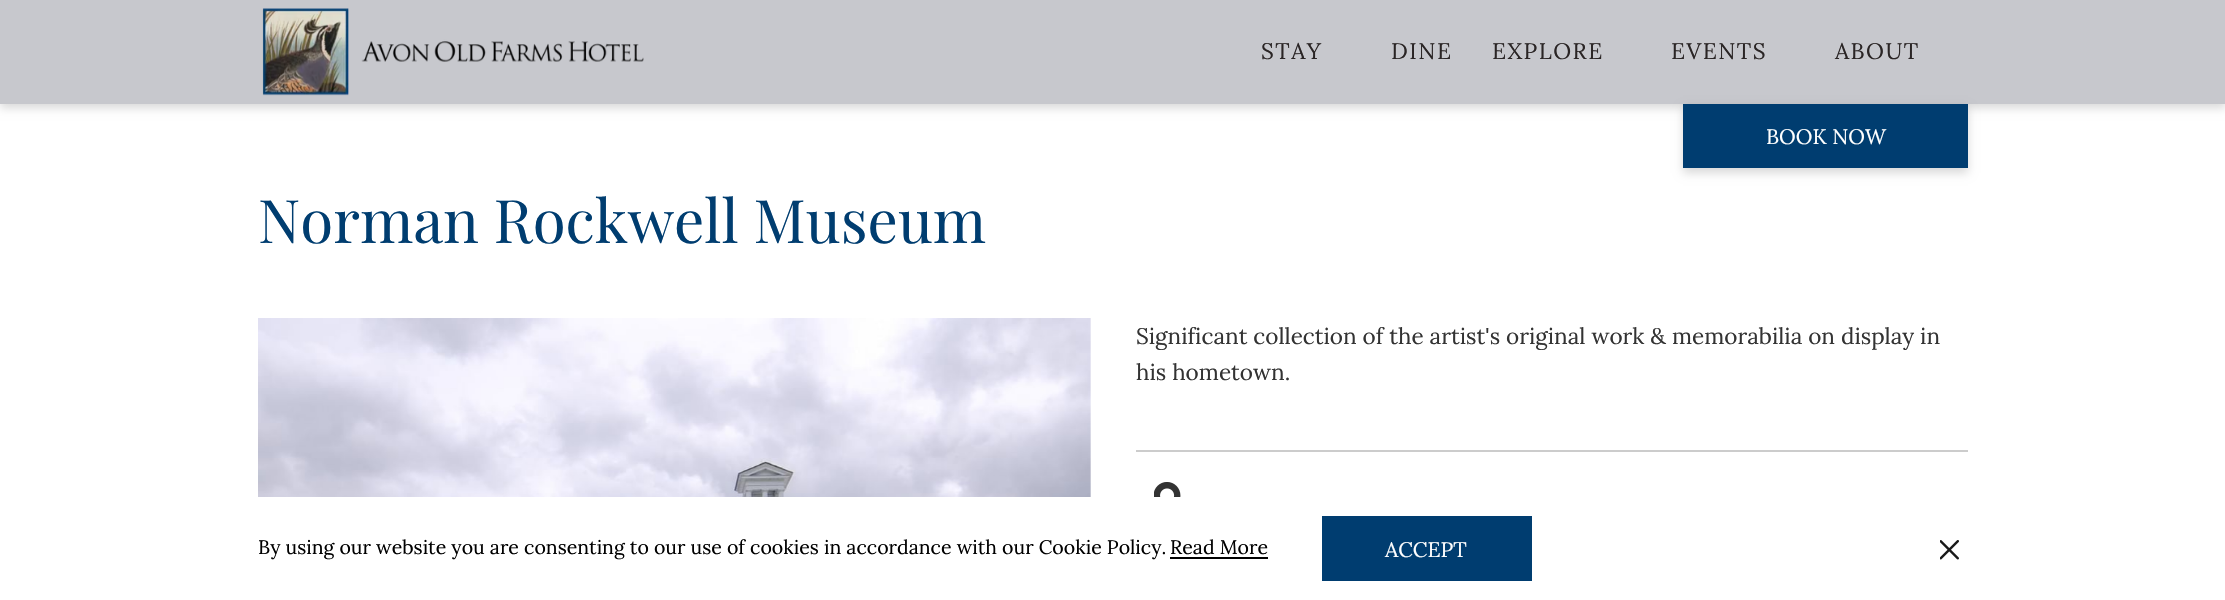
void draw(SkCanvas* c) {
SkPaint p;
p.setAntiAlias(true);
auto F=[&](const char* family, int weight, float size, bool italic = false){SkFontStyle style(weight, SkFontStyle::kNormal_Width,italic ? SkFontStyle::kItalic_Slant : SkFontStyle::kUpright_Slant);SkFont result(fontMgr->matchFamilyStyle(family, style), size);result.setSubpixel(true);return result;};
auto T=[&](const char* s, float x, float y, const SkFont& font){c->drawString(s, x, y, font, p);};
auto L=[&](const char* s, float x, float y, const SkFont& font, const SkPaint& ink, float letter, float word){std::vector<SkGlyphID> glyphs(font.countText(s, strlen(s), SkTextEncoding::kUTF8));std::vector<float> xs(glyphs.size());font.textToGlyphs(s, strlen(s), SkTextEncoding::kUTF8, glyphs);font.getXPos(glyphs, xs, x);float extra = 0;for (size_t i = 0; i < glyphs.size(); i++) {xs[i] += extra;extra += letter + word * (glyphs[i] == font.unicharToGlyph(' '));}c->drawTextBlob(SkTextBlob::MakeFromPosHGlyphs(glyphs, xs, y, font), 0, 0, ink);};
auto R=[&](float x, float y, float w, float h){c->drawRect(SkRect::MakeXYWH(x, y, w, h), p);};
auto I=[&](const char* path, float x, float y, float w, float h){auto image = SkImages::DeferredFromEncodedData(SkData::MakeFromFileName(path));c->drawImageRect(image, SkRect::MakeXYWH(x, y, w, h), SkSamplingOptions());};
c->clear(0xffffffff);
p.setColor(0x26000000);
p.setMaskFilter(SkMaskFilter::MakeBlur(kNormal_SkBlurStyle, 4.5));
c->drawRect(SkRect::MakeXYWH(0,5,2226,103),p);
p.setMaskFilter(nullptr);
p.setColor(0xffc7c8cd);
R(0,0,2225,104);
I("1.png",262,8,382,88);
auto f1 = F("Lora",400,22.5);
p.setColor(0xff2a2525);
L("STAY",1261,59,f1,p,1.5,0);
L("DINE",1391,59,f1,p,1.5,0);
L("EXPLORE",1492,59,f1,p,1.5,0);
L("EVENTS",1671,59,f1,p,1.5,0);
L("ABOUT",1835,59,f1,p,1.5,0);
p.setColor(0x26000000);
p.setMaskFilter(SkMaskFilter::MakeBlur(kNormal_SkBlurStyle, 4.5));
c->drawRect(SkRect::MakeXYWH(1683,108,285,65),p);
p.setMaskFilter(nullptr);
p.setColor(0xff003d70);
R(1683,104,285,64);
auto f2 = F("Lora",400,21);
p.setColor(0xffffffff);
T("BOOK NOW",1766,144,f2);
auto f3 = F("Playfair Display",400,60);
p.setColor(0xff003d70);
T("Norman Rockwell Museum",258,243,f3);
I("2.png",258,318,833,179);
p.setColor(0xff333333);
T("Significant collection of the artist's original work & memorabilia on display in",1136,344,f1);
T("his hometown.",1136,380,f1);
p.setColor(0xffcccccc);
R(1136,450,832,2);
I("3.png",1154,482,27,15);
auto f4 = F("Lora",400,19.5);
p.setColor(0xff000000);
T("By using our website you are consenting to our use of cookies in accordance with our Cookie Policy.",258,554,f4);
T("Read More",1170,554,f4);
R(1170,557,98,2);
p.setColor(0xff003d70);
R(1322,516,210,65);
p.setColor(0xffffffff);
T("ACCEPT",1385,557,f2);
I("4.png",1940,540,19,20);
}
